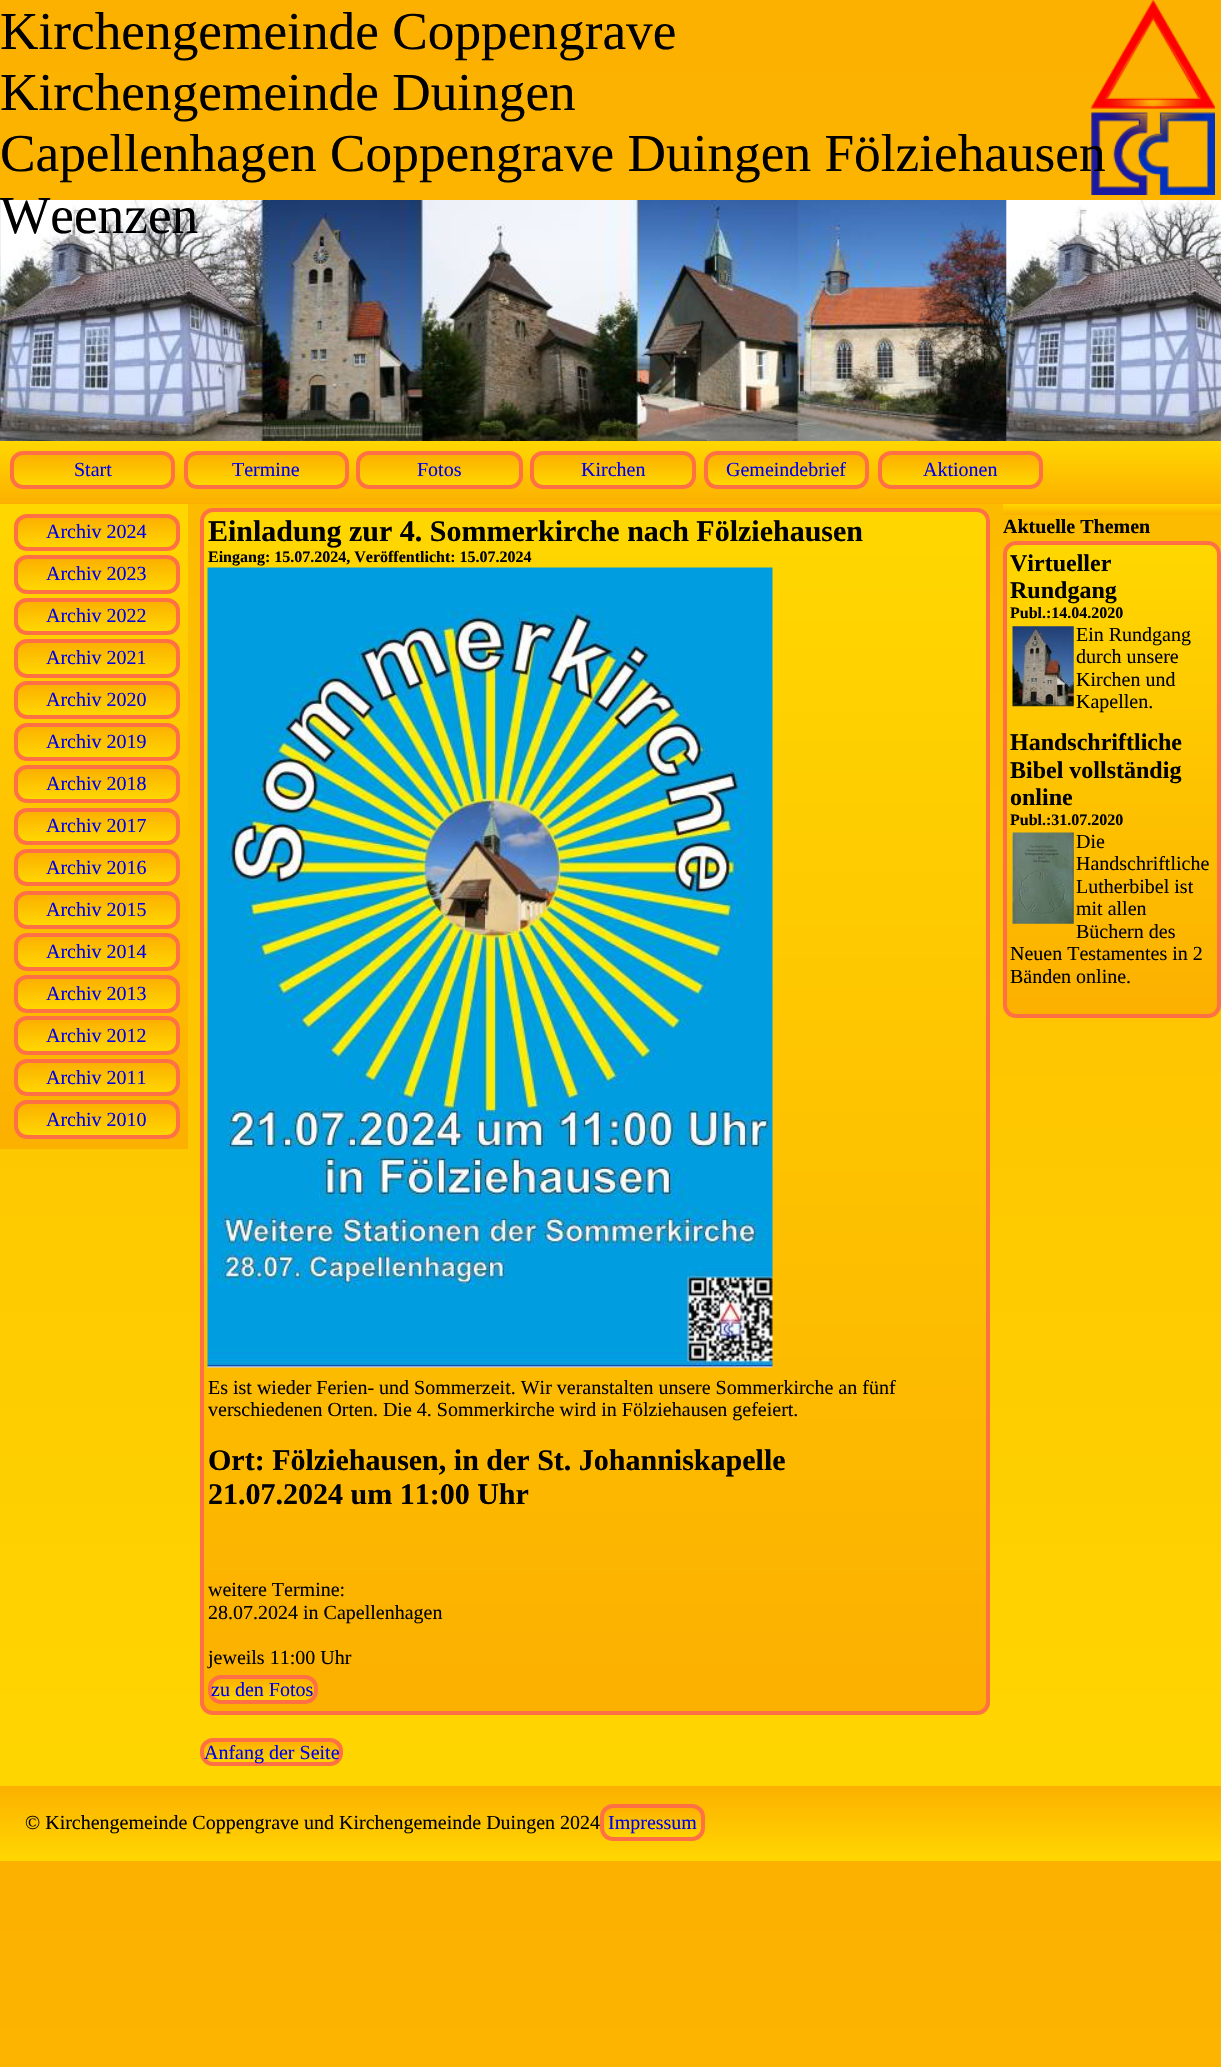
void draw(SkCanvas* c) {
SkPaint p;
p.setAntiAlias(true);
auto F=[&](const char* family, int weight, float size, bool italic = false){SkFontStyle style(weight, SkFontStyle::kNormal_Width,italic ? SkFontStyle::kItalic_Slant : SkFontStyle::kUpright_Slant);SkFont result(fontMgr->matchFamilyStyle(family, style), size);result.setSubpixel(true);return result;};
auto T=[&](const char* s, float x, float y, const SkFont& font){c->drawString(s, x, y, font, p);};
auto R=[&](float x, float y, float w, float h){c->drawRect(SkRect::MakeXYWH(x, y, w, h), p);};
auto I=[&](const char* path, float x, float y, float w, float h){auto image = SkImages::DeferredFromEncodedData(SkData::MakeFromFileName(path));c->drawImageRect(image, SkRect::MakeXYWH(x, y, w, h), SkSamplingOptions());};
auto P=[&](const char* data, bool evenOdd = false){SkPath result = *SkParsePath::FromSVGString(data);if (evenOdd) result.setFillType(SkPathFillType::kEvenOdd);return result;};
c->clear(0xffffffff);
{
const SkColor colors[] = {0xfffcb000,0xffffd700};
const float stops[] = {0,1};
const SkPoint ends[] = {{611,0}, {611,1861}};
p.setShader(SkGradientShader::MakeLinear(ends, colors, stops, 2, SkTileMode::kClamp));
p.setAlpha(255);
}
R(0,0,1221,1786);
{
const SkColor colors[] = {0xfffcb000,0xffffd700};
const float stops[] = {0,1};
const SkPoint ends[] = {{611,1861}, {611,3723}};
p.setShader(SkGradientShader::MakeLinear(ends, colors, stops, 2, SkTileMode::kClamp));
p.setAlpha(255);
}
R(0,1861,1221,206);
I("1.png",1090,0,125,195);
auto f1 = F("Liberation Serif",400,53.3);
p.setShader(nullptr);
p.setColor(0xff000000);
T("Kirchengemeinde Coppengrave",0,49,f1);
T("Kirchengemeinde Duingen",0,110,f1);
T("Capellenhagen Coppengrave Duingen Fölziehausen",0,171,f1);
I("2.png",0,200,1221,241);
T("Weenzen",0,233,f1);
{
const SkColor colors[] = {0xffffd700,0xfffcb000};
const float stops[] = {0,1};
const SkPoint ends[] = {{611,441}, {611,504}};
p.setShader(SkGradientShader::MakeLinear(ends, colors, stops, 2, SkTileMode::kClamp));
p.setAlpha(255);
}
R(0,441,1221,63);
c->save();
c->clipPath(P("M23 451h139c7 0 13 6 13 13v12c0 7-6 13-13 13h-139c-7 0-13-6-13-13v-12c0-7 6-13 13-13z"),true);
{
const SkColor colors[] = {0xfffcb000,0xffffd700};
const float stops[] = {0,1};
const SkPoint ends[] = {{93,455}, {93,485}};
p.setShader(SkGradientShader::MakeLinear(ends, colors, stops, 2, SkTileMode::kClamp));
p.setAlpha(255);
}
R(10,455,165,30);
c->restore();
p.setStroke(true);
p.setStrokeWidth(4);
p.setShader(nullptr);
p.setColor(0xffff7145);
c->drawRoundRect(SkRect::MakeXYWH(12,453,161,34),11,11,p);
auto f2 = F("Liberation Serif",400,20);
p.setStroke(false);
p.setColor(0xff0000ee);
T("Start",74,476,f2);
c->save();
c->clipPath(P("M197 451h139c7 0 13 6 13 13v12c0 7-6 13-13 13h-139c-7 0-13-6-13-13v-12c0-7 6-13 13-13z"),true);
{
const SkColor colors[] = {0xfffcb000,0xffffd700};
const float stops[] = {0,1};
const SkPoint ends[] = {{266,455}, {266,485}};
p.setShader(SkGradientShader::MakeLinear(ends, colors, stops, 2, SkTileMode::kClamp));
p.setAlpha(255);
}
R(184,455,165,30);
c->restore();
p.setStroke(true);
p.setShader(nullptr);
p.setColor(0xffff7145);
c->drawRoundRect(SkRect::MakeXYWH(186,453,161,34),11,11,p);
p.setStroke(false);
p.setColor(0xff0000ee);
T("Termine",232,476,f2);
c->save();
c->clipPath(P("M369 451h141c7 0 13 6 13 13v12c0 7-6 13-13 13h-141c-7 0-13-6-13-13v-12c0-7 6-13 13-13z"),true);
{
const SkColor colors[] = {0xfffcb000,0xffffd700};
const float stops[] = {0,1};
const SkPoint ends[] = {{439,455}, {439,485}};
p.setShader(SkGradientShader::MakeLinear(ends, colors, stops, 2, SkTileMode::kClamp));
p.setAlpha(255);
}
R(356,455,167,30);
c->restore();
p.setStroke(true);
p.setShader(nullptr);
p.setColor(0xffff7145);
c->drawRoundRect(SkRect::MakeXYWH(358,453,163,34),11,11,p);
p.setStroke(false);
p.setColor(0xff0000ee);
T("Fotos",417,476,f2);
c->save();
c->clipPath(P("M543 451h140c7 0 13 6 13 13v12c0 7-6 13-13 13h-140c-7 0-13-6-13-13v-12c0-7 6-13 13-13z"),true);
{
const SkColor colors[] = {0xfffcb000,0xffffd700};
const float stops[] = {0,1};
const SkPoint ends[] = {{613,455}, {613,485}};
p.setShader(SkGradientShader::MakeLinear(ends, colors, stops, 2, SkTileMode::kClamp));
p.setAlpha(255);
}
R(530,455,166,30);
c->restore();
p.setStroke(true);
p.setShader(nullptr);
p.setColor(0xffff7145);
c->drawRoundRect(SkRect::MakeXYWH(532,453,162,34),11,11,p);
p.setStroke(false);
p.setColor(0xff0000ee);
T("Kirchen",581,476,f2);
c->save();
c->clipPath(P("M717 451h139c7 0 13 6 13 13v12c0 7-6 13-13 13h-139c-7 0-13-6-13-13v-12c0-7 6-13 13-13z"),true);
{
const SkColor colors[] = {0xfffcb000,0xffffd700};
const float stops[] = {0,1};
const SkPoint ends[] = {{786,455}, {786,485}};
p.setShader(SkGradientShader::MakeLinear(ends, colors, stops, 2, SkTileMode::kClamp));
p.setAlpha(255);
}
R(704,455,165,30);
c->restore();
p.setStroke(true);
p.setShader(nullptr);
p.setColor(0xffff7145);
c->drawRoundRect(SkRect::MakeXYWH(706,453,161,34),11,11,p);
p.setStroke(false);
p.setColor(0xff0000ee);
T("Gemeindebrief",726,476,f2);
c->save();
c->clipPath(P("M891 451h139c7 0 13 6 13 13v12c0 7-6 13-13 13h-139c-7 0-13-6-13-13v-12c0-7 6-13 13-13z"),true);
{
const SkColor colors[] = {0xfffcb000,0xffffd700};
const float stops[] = {0,1};
const SkPoint ends[] = {{960,455}, {960,485}};
p.setShader(SkGradientShader::MakeLinear(ends, colors, stops, 2, SkTileMode::kClamp));
p.setAlpha(255);
}
R(878,455,165,30);
c->restore();
p.setStroke(true);
p.setShader(nullptr);
p.setColor(0xffff7145);
c->drawRoundRect(SkRect::MakeXYWH(880,453,161,34),11,11,p);
p.setStroke(false);
p.setColor(0xff0000ee);
T("Aktionen",923,476,f2);
{
const SkColor colors[] = {0xffffd700,0xfffcb000};
const float stops[] = {0,1};
const SkPoint ends[] = {{94,504}, {94,1149}};
p.setShader(SkGradientShader::MakeLinear(ends, colors, stops, 2, SkTileMode::kClamp));
p.setAlpha(255);
}
R(0,504,188,645);
c->save();
c->clipPath(P("M27 514h140c7 0 13 6 13 13v11c0 7-6 13-13 13h-140c-7 0-13-6-13-13v-11c0-7 6-13 13-13z"),true);
{
const SkColor colors[] = {0xfffcb000,0xffffd700};
const float stops[] = {0,1};
const SkPoint ends[] = {{97,518}, {97,548}};
p.setShader(SkGradientShader::MakeLinear(ends, colors, stops, 2, SkTileMode::kClamp));
p.setAlpha(255);
}
R(14,518,166,30);
c->restore();
p.setStroke(true);
p.setShader(nullptr);
p.setColor(0xffff7145);
c->drawRoundRect(SkRect::MakeXYWH(16,516,162,33),11,11,p);
p.setStroke(false);
p.setColor(0xff0000ee);
T("Archiv 2024",46,538,f2);
c->save();
c->clipPath(P("M27 555h140c7 0 13 6 13 13v13c0 7-6 13-13 13h-140c-7 0-13-6-13-13v-13c0-7 6-13 13-13z"),true);
{
const SkColor colors[] = {0xfffcb000,0xffffd700};
const float stops[] = {0,1};
const SkPoint ends[] = {{97,559}, {97,590}};
p.setShader(SkGradientShader::MakeLinear(ends, colors, stops, 2, SkTileMode::kClamp));
p.setAlpha(255);
}
R(14,559,166,31);
c->restore();
p.setStroke(true);
p.setShader(nullptr);
p.setColor(0xffff7145);
c->drawRoundRect(SkRect::MakeXYWH(16,557,162,35),11,11,p);
p.setStroke(false);
p.setColor(0xff0000ee);
T("Archiv 2023",46,580,f2);
c->save();
c->clipPath(P("M27 598h140c7 0 13 6 13 13v11c0 7-6 13-13 13h-140c-7 0-13-6-13-13v-11c0-7 6-13 13-13z"),true);
{
const SkColor colors[] = {0xfffcb000,0xffffd700};
const float stops[] = {0,1};
const SkPoint ends[] = {{97,601}, {97,631}};
p.setShader(SkGradientShader::MakeLinear(ends, colors, stops, 2, SkTileMode::kClamp));
p.setAlpha(255);
}
R(14,601,166,30);
c->restore();
p.setStroke(true);
p.setShader(nullptr);
p.setColor(0xffff7145);
c->drawRoundRect(SkRect::MakeXYWH(16,600,162,33),11,11,p);
p.setStroke(false);
p.setColor(0xff0000ee);
T("Archiv 2022",46,622,f2);
c->save();
c->clipPath(P("M27 639h140c7 0 13 6 13 13v13c0 7-6 13-13 13h-140c-7 0-13-6-13-13v-13c0-7 6-13 13-13z"),true);
{
const SkColor colors[] = {0xfffcb000,0xffffd700};
const float stops[] = {0,1};
const SkPoint ends[] = {{97,643}, {97,674}};
p.setShader(SkGradientShader::MakeLinear(ends, colors, stops, 2, SkTileMode::kClamp));
p.setAlpha(255);
}
R(14,643,166,31);
c->restore();
p.setStroke(true);
p.setShader(nullptr);
p.setColor(0xffff7145);
c->drawRoundRect(SkRect::MakeXYWH(16,641,162,35),11,11,p);
p.setStroke(false);
p.setColor(0xff0000ee);
T("Archiv 2021",46,664,f2);
c->save();
c->clipPath(P("M27 681h140c7 0 13 6 13 13v12c0 7-6 13-13 13h-140c-7 0-13-6-13-13v-12c0-7 6-13 13-13z"),true);
{
const SkColor colors[] = {0xfffcb000,0xffffd700};
const float stops[] = {0,1};
const SkPoint ends[] = {{97,685}, {97,715}};
p.setShader(SkGradientShader::MakeLinear(ends, colors, stops, 2, SkTileMode::kClamp));
p.setAlpha(255);
}
R(14,685,166,30);
c->restore();
p.setStroke(true);
p.setShader(nullptr);
p.setColor(0xffff7145);
c->drawRoundRect(SkRect::MakeXYWH(16,683,162,34),11,11,p);
p.setStroke(false);
p.setColor(0xff0000ee);
T("Archiv 2020",46,706,f2);
c->save();
c->clipPath(P("M27 723h140c7 0 13 6 13 13v12c0 7-6 13-13 13h-140c-7 0-13-6-13-13v-12c0-7 6-13 13-13z"),true);
{
const SkColor colors[] = {0xfffcb000,0xffffd700};
const float stops[] = {0,1};
const SkPoint ends[] = {{97,726}, {97,758}};
p.setShader(SkGradientShader::MakeLinear(ends, colors, stops, 2, SkTileMode::kClamp));
p.setAlpha(255);
}
R(14,726,166,32);
c->restore();
p.setStroke(true);
p.setShader(nullptr);
p.setColor(0xffff7145);
c->drawRoundRect(SkRect::MakeXYWH(16,725,162,34),11,11,p);
p.setStroke(false);
p.setColor(0xff0000ee);
T("Archiv 2019",46,748,f2);
c->save();
c->clipPath(P("M27 765h140c7 0 13 6 13 13v12c0 7-6 13-13 13h-140c-7 0-13-6-13-13v-12c0-7 6-13 13-13z"),true);
{
const SkColor colors[] = {0xfffcb000,0xffffd700};
const float stops[] = {0,1};
const SkPoint ends[] = {{97,769}, {97,799}};
p.setShader(SkGradientShader::MakeLinear(ends, colors, stops, 2, SkTileMode::kClamp));
p.setAlpha(255);
}
R(14,769,166,30);
c->restore();
p.setStroke(true);
p.setShader(nullptr);
p.setColor(0xffff7145);
c->drawRoundRect(SkRect::MakeXYWH(16,767,162,34),11,11,p);
p.setStroke(false);
p.setColor(0xff0000ee);
T("Archiv 2018",46,790,f2);
c->save();
c->clipPath(P("M27 808h140c7 0 13 6 13 13v11c0 7-6 13-13 13h-140c-7 0-13-6-13-13v-11c0-7 6-13 13-13z"),true);
{
const SkColor colors[] = {0xfffcb000,0xffffd700};
const float stops[] = {0,1};
const SkPoint ends[] = {{97,811}, {97,841}};
p.setShader(SkGradientShader::MakeLinear(ends, colors, stops, 2, SkTileMode::kClamp));
p.setAlpha(255);
}
R(14,811,166,30);
c->restore();
p.setStroke(true);
p.setShader(nullptr);
p.setColor(0xffff7145);
c->drawRoundRect(SkRect::MakeXYWH(16,810,162,33),11,11,p);
p.setStroke(false);
p.setColor(0xff0000ee);
T("Archiv 2017",46,832,f2);
c->save();
c->clipPath(P("M27 849h140c7 0 13 6 13 13v11c0 7-6 13-13 13h-140c-7 0-13-6-13-13v-11c0-7 6-13 13-13z"),true);
{
const SkColor colors[] = {0xfffcb000,0xffffd700};
const float stops[] = {0,1};
const SkPoint ends[] = {{97,853}, {97,883}};
p.setShader(SkGradientShader::MakeLinear(ends, colors, stops, 2, SkTileMode::kClamp));
p.setAlpha(255);
}
R(14,853,166,30);
c->restore();
p.setStroke(true);
p.setShader(nullptr);
p.setColor(0xffff7145);
c->drawRoundRect(SkRect::MakeXYWH(16,851,162,33),11,11,p);
p.setStroke(false);
p.setColor(0xff0000ee);
T("Archiv 2016",46,874,f2);
c->save();
c->clipPath(P("M27 891h140c7 0 13 6 13 13v12c0 7-6 13-13 13h-140c-7 0-13-6-13-13v-12c0-7 6-13 13-13z"),true);
{
const SkColor colors[] = {0xfffcb000,0xffffd700};
const float stops[] = {0,1};
const SkPoint ends[] = {{97,895}, {97,925}};
p.setShader(SkGradientShader::MakeLinear(ends, colors, stops, 2, SkTileMode::kClamp));
p.setAlpha(255);
}
R(14,895,166,30);
c->restore();
p.setStroke(true);
p.setShader(nullptr);
p.setColor(0xffff7145);
c->drawRoundRect(SkRect::MakeXYWH(16,893,162,34),11,11,p);
p.setStroke(false);
p.setColor(0xff0000ee);
T("Archiv 2015",46,916,f2);
c->save();
c->clipPath(P("M27 933h140c7 0 13 6 13 13v12c0 7-6 13-13 13h-140c-7 0-13-6-13-13v-12c0-7 6-13 13-13z"),true);
{
const SkColor colors[] = {0xfffcb000,0xffffd700};
const float stops[] = {0,1};
const SkPoint ends[] = {{97,936}, {97,968}};
p.setShader(SkGradientShader::MakeLinear(ends, colors, stops, 2, SkTileMode::kClamp));
p.setAlpha(255);
}
R(14,936,166,32);
c->restore();
p.setStroke(true);
p.setShader(nullptr);
p.setColor(0xffff7145);
c->drawRoundRect(SkRect::MakeXYWH(16,935,162,34),11,11,p);
p.setStroke(false);
p.setColor(0xff0000ee);
T("Archiv 2014",46,958,f2);
c->save();
c->clipPath(P("M27 975h140c7 0 13 6 13 13v12c0 7-6 13-13 13h-140c-7 0-13-6-13-13v-12c0-7 6-13 13-13z"),true);
{
const SkColor colors[] = {0xfffcb000,0xffffd700};
const float stops[] = {0,1};
const SkPoint ends[] = {{97,979}, {97,1009}};
p.setShader(SkGradientShader::MakeLinear(ends, colors, stops, 2, SkTileMode::kClamp));
p.setAlpha(255);
}
R(14,979,166,30);
c->restore();
p.setStroke(true);
p.setShader(nullptr);
p.setColor(0xffff7145);
c->drawRoundRect(SkRect::MakeXYWH(16,977,162,34),11,11,p);
p.setStroke(false);
p.setColor(0xff0000ee);
T("Archiv 2013",46,1000,f2);
c->save();
c->clipPath(P("M27 1016h140c7 0 13 6 13 13v13c0 7-6 13-13 13h-140c-7 0-13-6-13-13v-13c0-7 6-13 13-13z"),true);
{
const SkColor colors[] = {0xfffcb000,0xffffd700};
const float stops[] = {0,1};
const SkPoint ends[] = {{97,1020}, {97,1051}};
p.setShader(SkGradientShader::MakeLinear(ends, colors, stops, 2, SkTileMode::kClamp));
p.setAlpha(255);
}
R(14,1020,166,31);
c->restore();
p.setStroke(true);
p.setShader(nullptr);
p.setColor(0xffff7145);
c->drawRoundRect(SkRect::MakeXYWH(16,1018,162,35),11,11,p);
p.setStroke(false);
p.setColor(0xff0000ee);
T("Archiv 2012",46,1042,f2);
c->save();
c->clipPath(P("M27 1059h140c7 0 13 6 13 13v11c0 7-6 13-13 13h-140c-7 0-13-6-13-13v-11c0-7 6-13 13-13z"),true);
{
const SkColor colors[] = {0xfffcb000,0xffffd700};
const float stops[] = {0,1};
const SkPoint ends[] = {{97,1063}, {97,1093}};
p.setShader(SkGradientShader::MakeLinear(ends, colors, stops, 2, SkTileMode::kClamp));
p.setAlpha(255);
}
R(14,1063,166,30);
c->restore();
p.setStroke(true);
p.setShader(nullptr);
p.setColor(0xffff7145);
c->drawRoundRect(SkRect::MakeXYWH(16,1061,162,33),11,11,p);
p.setStroke(false);
p.setColor(0xff0000ee);
T("Archiv 2011",46,1084,f2);
c->save();
c->clipPath(P("M27 1100h140c7 0 13 6 13 13v13c0 7-6 13-13 13h-140c-7 0-13-6-13-13v-13c0-7 6-13 13-13z"),true);
{
const SkColor colors[] = {0xfffcb000,0xffffd700};
const float stops[] = {0,1};
const SkPoint ends[] = {{97,1104}, {97,1135}};
p.setShader(SkGradientShader::MakeLinear(ends, colors, stops, 2, SkTileMode::kClamp));
p.setAlpha(255);
}
R(14,1104,166,31);
c->restore();
p.setStroke(true);
p.setShader(nullptr);
p.setColor(0xffff7145);
c->drawRoundRect(SkRect::MakeXYWH(16,1102,162,35),11,11,p);
p.setStroke(false);
p.setColor(0xff0000ee);
T("Archiv 2010",46,1126,f2);
c->save();
c->clipPath(P("M213 508h764c7 0 13 6 13 13v1181c0 7-6 13-13 13h-764c-7 0-13-6-13-13v-1181c0-7 6-13 13-13z"),true);
{
const SkColor colors[] = {0xffffd700,0xfffcb000};
const float stops[] = {0,1};
const SkPoint ends[] = {{595,511}, {595,1711}};
p.setShader(SkGradientShader::MakeLinear(ends, colors, stops, 2, SkTileMode::kClamp));
p.setAlpha(255);
}
R(200,511,790,1200);
c->restore();
p.setStroke(true);
p.setShader(nullptr);
p.setColor(0xffff7145);
c->drawRoundRect(SkRect::MakeXYWH(202,510,786,1203),11,11,p);
auto f3 = F("Liberation Serif",700,30);
p.setStroke(false);
p.setColor(0xff000000);
T("Einladung zur 4. Sommerkirche nach Fölziehausen",208,541,f3);
auto f4 = F("Liberation Serif",700,16);
T("Eingang: 15.07.2024, Veröffentlicht: 15.07.2024",208,562,f4);
I("3.png",207,567,566,801);
T("Es ist wieder Ferien- und Sommerzeit. Wir veranstalten unsere Sommerkirche an fünf",208,1394,f2);
T("verschiedenen Orten. Die 4. Sommerkirche wird in Fölziehausen gefeiert.",208,1416,f2);
T("Ort: Fölziehausen, in der St. Johanniskapelle",208,1470,f3);
T("21.07.2024 um 11:00 Uhr",208,1504,f3);
T("weitere Termine:",208,1596,f2);
T("28.07.2024 in Capellenhagen",208,1619,f2);
T("jeweils 11:00 Uhr",208,1664,f2);
c->save();
c->clipPath(P("M221 1675h84c7 0 13 6 13 13v3c0 7-6 13-13 13h-84c-7 0-13-6-13-13v-3c0-7 6-13 13-13z"),true);
{
const SkColor colors[] = {0xfffcb000,0xffffd700};
const float stops[] = {0,1};
const SkPoint ends[] = {{263,1679}, {263,1700}};
p.setShader(SkGradientShader::MakeLinear(ends, colors, stops, 2, SkTileMode::kClamp));
p.setAlpha(255);
}
R(208,1679,110,21);
c->restore();
p.setStroke(true);
p.setShader(nullptr);
p.setColor(0xffff7145);
c->drawRoundRect(SkRect::MakeXYWH(210,1677,106,25),11,11,p);
p.setStroke(false);
p.setColor(0xff0000ee);
T("zu den Fotos",211,1696,f2);
c->save();
c->clipPath(P("M213 1738h117c7 0 13 6 13 13v2c0 7-6 13-13 13h-117c-7 0-13-6-13-13v-2c0-7 6-13 13-13z"),true);
{
const SkColor colors[] = {0xfffcb000,0xffffd700};
const float stops[] = {0,1};
const SkPoint ends[] = {{271,1741}, {271,1763}};
p.setShader(SkGradientShader::MakeLinear(ends, colors, stops, 2, SkTileMode::kClamp));
p.setAlpha(255);
}
R(200,1741,143,22);
c->restore();
p.setStroke(true);
p.setShader(nullptr);
p.setColor(0xffff7145);
c->drawRoundRect(SkRect::MakeXYWH(202,1740,139,24),11,11,p);
p.setStroke(false);
p.setColor(0xff0000ee);
T("Anfang der Seite",204,1759,f2);
{
const SkColor colors[] = {0xffffd700,0xfffcb000};
const float stops[] = {0,1};
const SkPoint ends[] = {{1112,504}, {1112,515}};
p.setShader(SkGradientShader::MakeLinear(ends, colors, stops, 2, SkTileMode::kClamp));
p.setAlpha(255);
}
R(1003,504,218,11);
auto f5 = F("Liberation Serif",700,20);
p.setShader(nullptr);
p.setColor(0xff000000);
T("Aktuelle Themen",1003,533,f5);
c->save();
c->clipPath(P("M1016 541h192c7 0 13 6 13 13v451c0 7-6 13-13 13h-192c-7 0-13-6-13-13v-451c0-7 6-13 13-13z"),true);
{
const SkColor colors[] = {0xffffd700,0xfffcb000};
const float stops[] = {0,1};
const SkPoint ends[] = {{1112,545}, {1112,1014}};
p.setShader(SkGradientShader::MakeLinear(ends, colors, stops, 2, SkTileMode::kClamp));
p.setAlpha(255);
}
R(1003,545,218,469);
c->restore();
p.setStroke(true);
p.setShader(nullptr);
p.setColor(0xffff7145);
c->drawRoundRect(SkRect::MakeXYWH(1005,543,214,473),11,11,p);
auto f6 = F("Liberation Serif",700,24);
p.setStroke(false);
p.setColor(0xff000000);
T("Virtueller",1010,571,f6);
T("Rundgang",1010,598,f6);
T("Publ.:14.04.2020",1010,618,f4);
I("4.png",1012,626,62,81);
T("Ein Rundgang",1076,641,f2);
T("durch unsere",1076,663,f2);
T("Kirchen und",1076,686,f2);
T("Kapellen.",1076,708,f2);
T("Handschriftliche",1010,750,f6);
T("Bibel vollständig",1010,778,f6);
T("online",1010,805,f6);
T("Publ.:31.07.2020",1010,825,f4);
I("5.png",1012,832,62,92);
T("Die",1076,848,f2);
T("Handschriftliche",1076,870,f2);
T("Lutherbibel ist",1076,893,f2);
T("mit allen",1076,915,f2);
T("Büchern des",1076,938,f2);
T("Neuen Testamentes in 2",1010,960,f2);
T("Bänden online.",1010,983,f2);
{
const SkColor colors[] = {0xfffcb000,0xffffd700};
const float stops[] = {0,1};
const SkPoint ends[] = {{611,1786}, {611,1861}};
p.setShader(SkGradientShader::MakeLinear(ends, colors, stops, 2, SkTileMode::kClamp));
p.setAlpha(255);
}
R(0,1786,1221,75);
p.setShader(nullptr);
p.setColor(0xff000000);
T("© Kirchengemeinde Coppengrave und Kirchengemeinde Duingen 2024",25,1829,f2);
c->save();
c->clipPath(P("M613 1804h79c7 0 13 6 13 13v11c0 7-6 13-13 13h-79c-7 0-13-6-13-13v-11c0-7 6-13 13-13z"),true);
{
const SkColor colors[] = {0xfffcb000,0xffffd700};
const float stops[] = {0,1};
const SkPoint ends[] = {{653,1808}, {653,1838}};
p.setShader(SkGradientShader::MakeLinear(ends, colors, stops, 2, SkTileMode::kClamp));
p.setAlpha(255);
}
R(600,1808,105,30);
c->restore();
p.setStroke(true);
p.setShader(nullptr);
p.setColor(0xffff7145);
c->drawRoundRect(SkRect::MakeXYWH(602,1806,101,33),11,11,p);
p.setStroke(false);
p.setColor(0xff0000ee);
T("Impressum",608,1829,f2);
}
